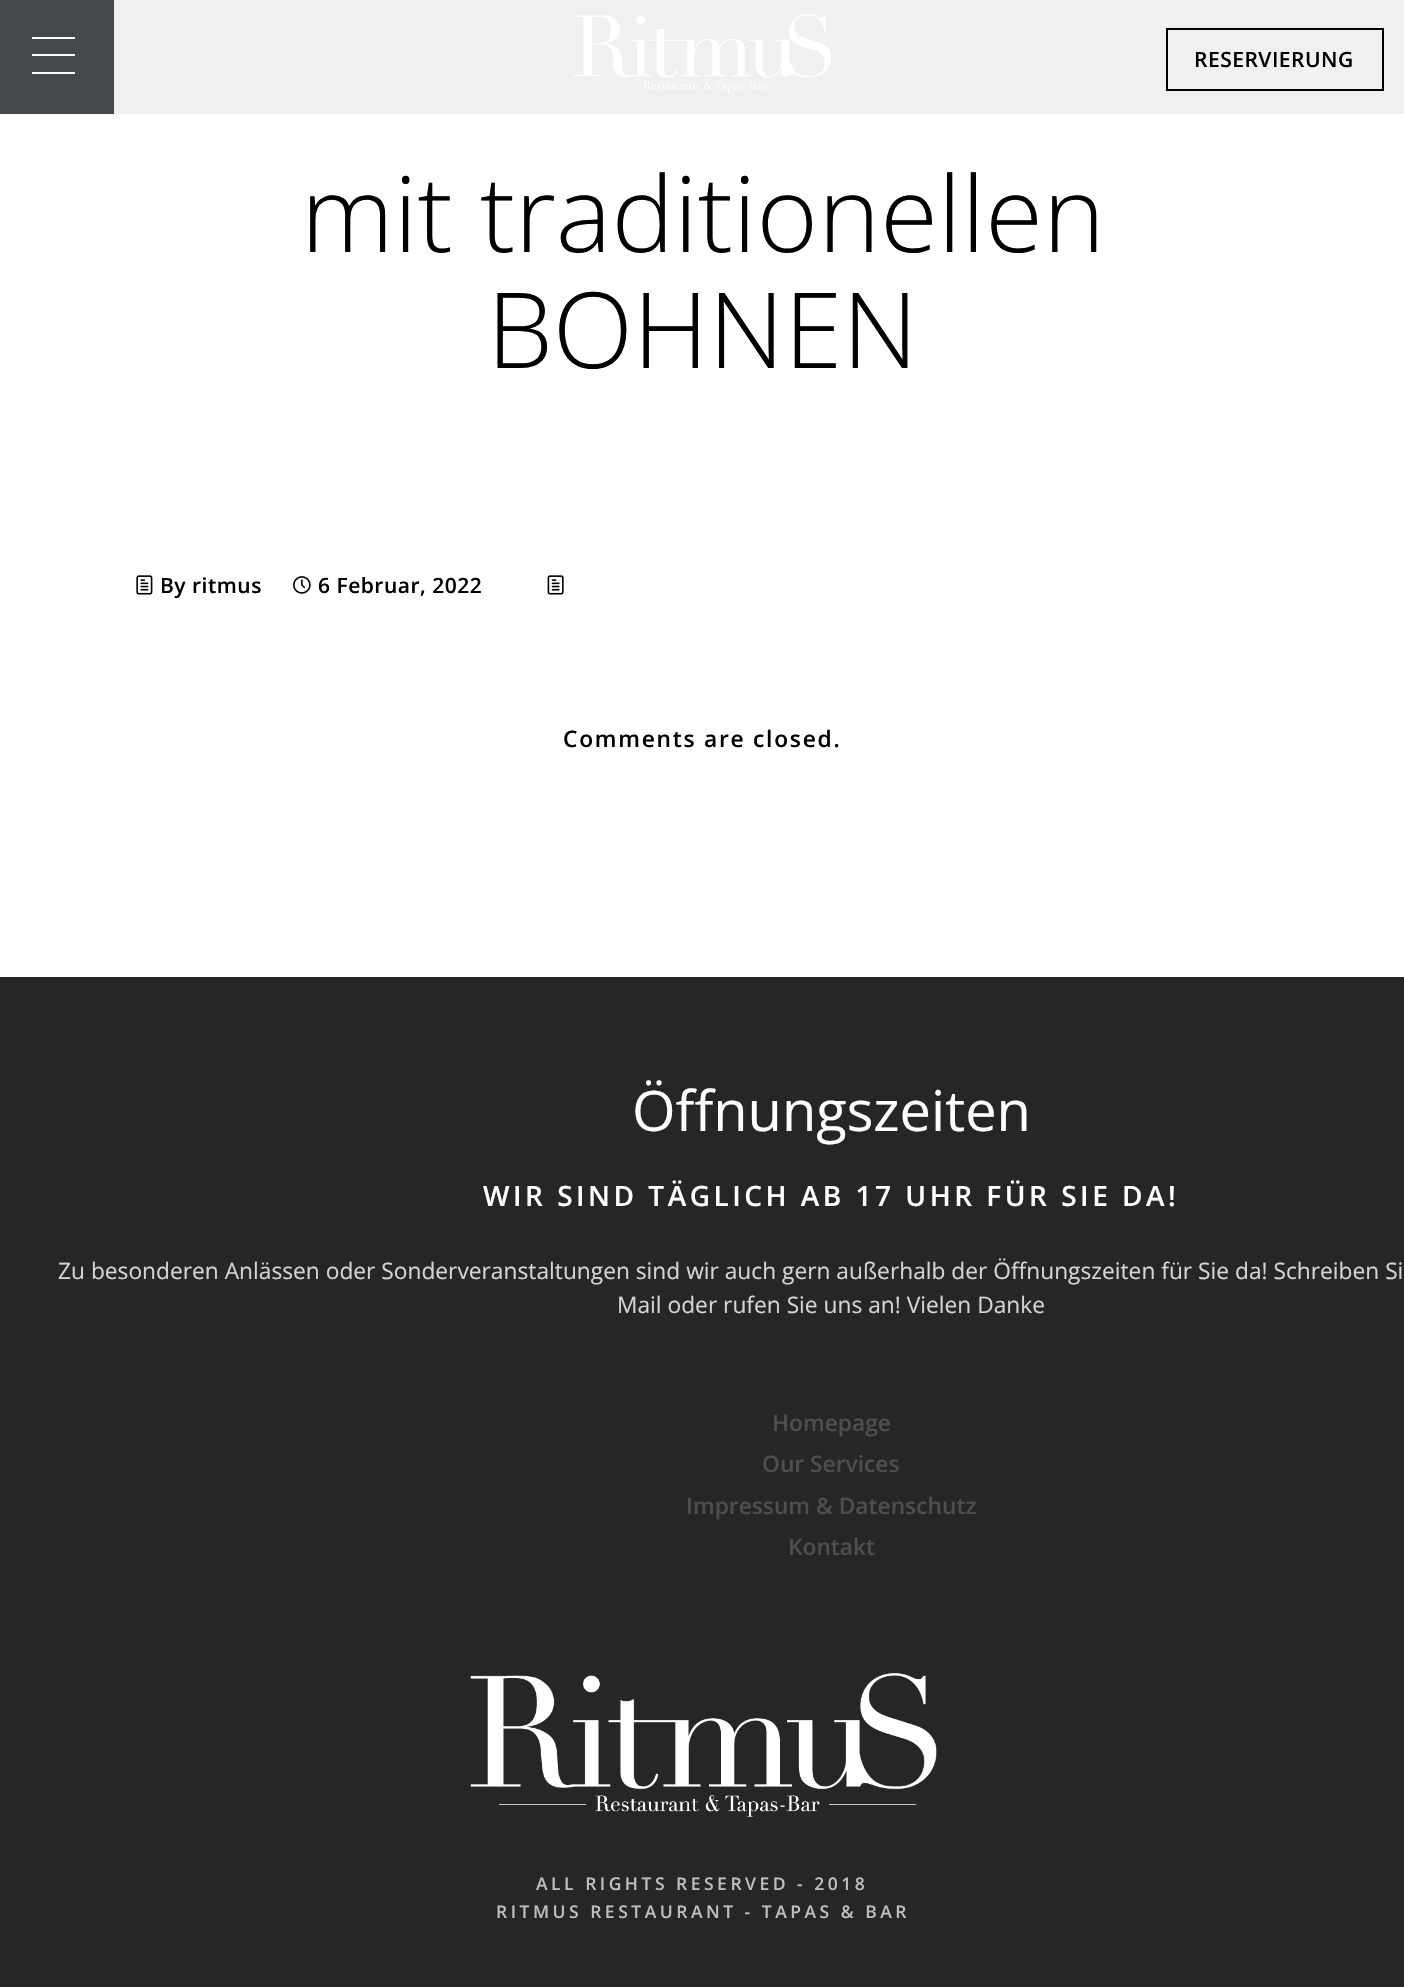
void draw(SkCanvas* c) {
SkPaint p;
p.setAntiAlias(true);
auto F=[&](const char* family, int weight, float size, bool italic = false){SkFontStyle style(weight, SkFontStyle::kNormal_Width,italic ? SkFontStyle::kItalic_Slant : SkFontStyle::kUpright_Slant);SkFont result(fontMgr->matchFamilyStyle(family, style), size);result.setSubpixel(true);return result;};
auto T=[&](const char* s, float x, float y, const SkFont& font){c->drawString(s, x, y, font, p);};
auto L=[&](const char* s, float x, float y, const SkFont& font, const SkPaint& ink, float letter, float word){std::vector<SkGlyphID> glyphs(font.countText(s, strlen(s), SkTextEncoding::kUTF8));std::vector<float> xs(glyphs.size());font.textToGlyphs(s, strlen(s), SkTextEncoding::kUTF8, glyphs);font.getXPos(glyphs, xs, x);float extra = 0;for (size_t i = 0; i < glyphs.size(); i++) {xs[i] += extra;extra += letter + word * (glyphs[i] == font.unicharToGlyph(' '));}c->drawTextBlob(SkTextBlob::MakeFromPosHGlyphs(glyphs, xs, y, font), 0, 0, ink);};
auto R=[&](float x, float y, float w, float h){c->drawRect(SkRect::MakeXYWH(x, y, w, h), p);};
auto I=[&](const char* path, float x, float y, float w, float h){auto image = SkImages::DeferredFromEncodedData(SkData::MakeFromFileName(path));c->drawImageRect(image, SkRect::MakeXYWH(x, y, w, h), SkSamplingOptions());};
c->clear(0xffffffff);
p.setColor(0xff44494b);
R(0,0,114,114);
p.setColor(0xffffffff);
R(32,54,43,2);
R(32,37,43,2);
R(32,72,43,2);
p.setColor(0xfff0f0f0);
R(114,0,1290,114);
I("1.png",574,14,257,79);
p.setStroke(true);
p.setStrokeWidth(2);
p.setColor(0xff000000);
c->drawRect(SkRect::MakeXYWH(1167,29,216,61),p);
auto f1 = F("Open Sans",600,21);
p.setStroke(false);
L("RESERVIERUNG",1194,67,f1,p,.5,0);
auto f2 = F("Open Sans",300,105);
T("mit traditionellen",301,252,f2);
T("BOHNEN",487,368,f2);
I("2.png",136,575,17,20);
L("By ritmus",160,593,f1,p,.5,0);
I("3.png",293,576,18,18);
L("6 Februar, 2022",318,593,f1,p,.5,0);
I("4.png",547,575,17,20);
auto f3 = F("Open Sans",600,22.75);
L("Comments are closed.",563,747,f3,p,1.75,0);
p.setColor(0xff262626);
R(0,977,1404,1010);
auto f4 = F("Open Sans",400,56);
p.setColor(0xffffffff);
T("Öffnungszeiten",632,1131,f4);
auto f5 = F("Open Sans",600,28);
L("WIR SIND TÄGLICH AB 17 UHR FÜR SIE DA!",483,1206,f5,p,3.5,0);
auto f6 = F("Open Sans",400,22.75);
p.setColor(0xffd4d4d4);
T("Zu besonderen Anlässen oder Sonderveranstaltungen sind wir auch gern außerhalb der Öffnungszeiten für Sie da! Schreiben Si",58,1279,f6);
T("Mail oder rufen Sie uns an! Vielen Danke",617,1313,f6);
p.setColor(0xff4e4e4e);
T("Homepage",772,1431,f3);
T("Our Services",762,1472,f3);
T("Impressum & Datenschutz",686,1514,f3);
T("Kontakt",788,1555,f3);
I("5.png",470,1673,467,144);
auto f7 = F("Open Sans",600,17.5);
p.setColor(0xffbebebe);
L("ALL RIGHTS RESERVED - 2018",536,1890,f7,p,3.5,0);
L("RITMUS RESTAURANT - TAPAS & BAR",496,1918,f7,p,3.5,0);
}
